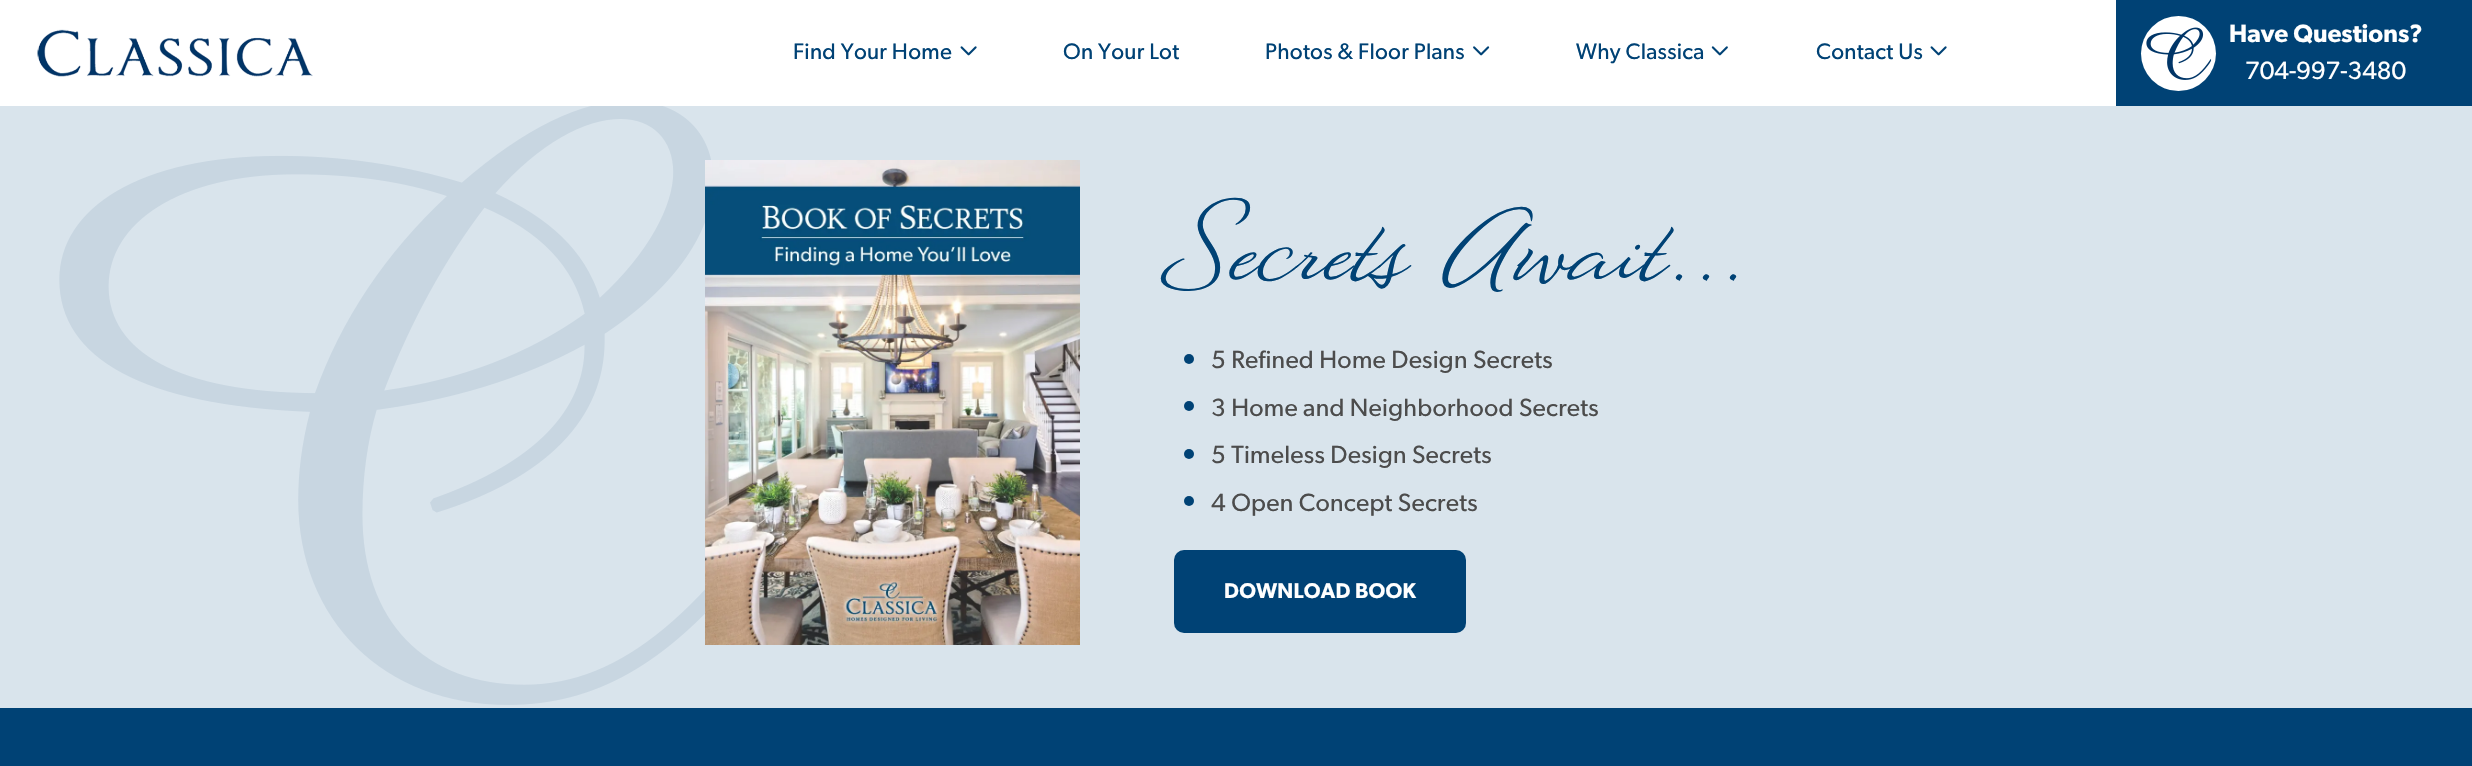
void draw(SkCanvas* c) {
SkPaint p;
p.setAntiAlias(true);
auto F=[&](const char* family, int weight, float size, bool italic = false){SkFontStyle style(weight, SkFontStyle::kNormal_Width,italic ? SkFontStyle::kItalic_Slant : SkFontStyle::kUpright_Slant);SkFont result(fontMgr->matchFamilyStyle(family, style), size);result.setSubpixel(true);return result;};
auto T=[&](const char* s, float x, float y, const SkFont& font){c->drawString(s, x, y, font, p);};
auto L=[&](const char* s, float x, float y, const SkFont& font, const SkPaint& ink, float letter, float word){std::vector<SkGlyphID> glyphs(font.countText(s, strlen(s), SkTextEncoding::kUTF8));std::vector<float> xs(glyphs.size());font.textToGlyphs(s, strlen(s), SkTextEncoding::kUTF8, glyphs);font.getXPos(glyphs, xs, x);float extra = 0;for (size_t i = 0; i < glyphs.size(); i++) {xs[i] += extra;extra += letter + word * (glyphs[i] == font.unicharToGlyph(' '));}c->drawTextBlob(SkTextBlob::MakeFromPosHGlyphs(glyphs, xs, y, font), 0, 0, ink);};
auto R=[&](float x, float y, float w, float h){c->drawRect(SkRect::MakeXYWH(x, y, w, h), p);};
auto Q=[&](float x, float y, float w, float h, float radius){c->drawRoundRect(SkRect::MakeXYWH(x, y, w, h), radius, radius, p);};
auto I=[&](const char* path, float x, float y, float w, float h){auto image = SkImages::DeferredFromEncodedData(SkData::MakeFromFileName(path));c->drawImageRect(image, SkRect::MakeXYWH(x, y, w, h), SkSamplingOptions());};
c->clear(0xff004275);
p.setColor(0xffffffff);
R(0,0,2116,106);
I("1.png",37,29,276,48);
auto f1 = F("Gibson",400,22.5);
p.setColor(0xff004275);
L("Find Your Home",793,59,f1,p,.25,0);
I("2.png",960,46,17,10);
L("On Your Lot",1063,59,f1,p,.25,0);
L("Photos & Floor Plans",1265,59,f1,p,.25,0);
I("3.png",1473,46,17,10);
L("Why Classica",1576,59,f1,p,.25,0);
I("4.png",1711,46,17,10);
L("Contact Us",1816,59,f1,p,.25,0);
I("2.png",1930,46,17,10);
p.setColor(0xffffffff);
c->drawCircle(2178.5,53.5,37.5,p);
I("5.png",2146,27,66,53);
auto f2 = F("Gibson",600,25);
T("Have Questions?",2229,42,f2);
auto f3 = F("Gibson",400,25);
T("704-997-3480",2245,79,f3);
p.setColor(0xffd9e4ec);
R(0,106,2472,602);
I("6.png",59,106,652,599);
I("7.png",705,160,375,485);
auto f4 = F("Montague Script",400,125);
p.setColor(0xff004275);
L("Secrets Await...",1174,279,f4,p,.25,-1);
c->drawCircle(1189,359,5,p);
p.setColor(0xff4c4c4c);
L("5 Refined Home Design Secrets",1211,368,f3,p,.25,0);
p.setColor(0xff004275);
c->drawCircle(1189,406,5,p);
p.setColor(0xff4c4c4c);
L("3 Home and Neighborhood Secrets",1211,416,f3,p,.25,0);
p.setColor(0xff004275);
c->drawCircle(1189,454,5,p);
p.setColor(0xff4c4c4c);
L("5 Timeless Design Secrets",1211,463,f3,p,.25,0);
p.setColor(0xff004275);
c->drawCircle(1189,501,5,p);
p.setColor(0xff4c4c4c);
L("4 Open Concept Secrets",1211,511,f3,p,.25,0);
p.setColor(0xff004275);
Q(1174,550,292,83,10);
auto f5 = F("Gibson",600,21.25);
p.setColor(0xffffffff);
L("DOWNLOAD BOOK",1224,598,f5,p,.25,0);
}
